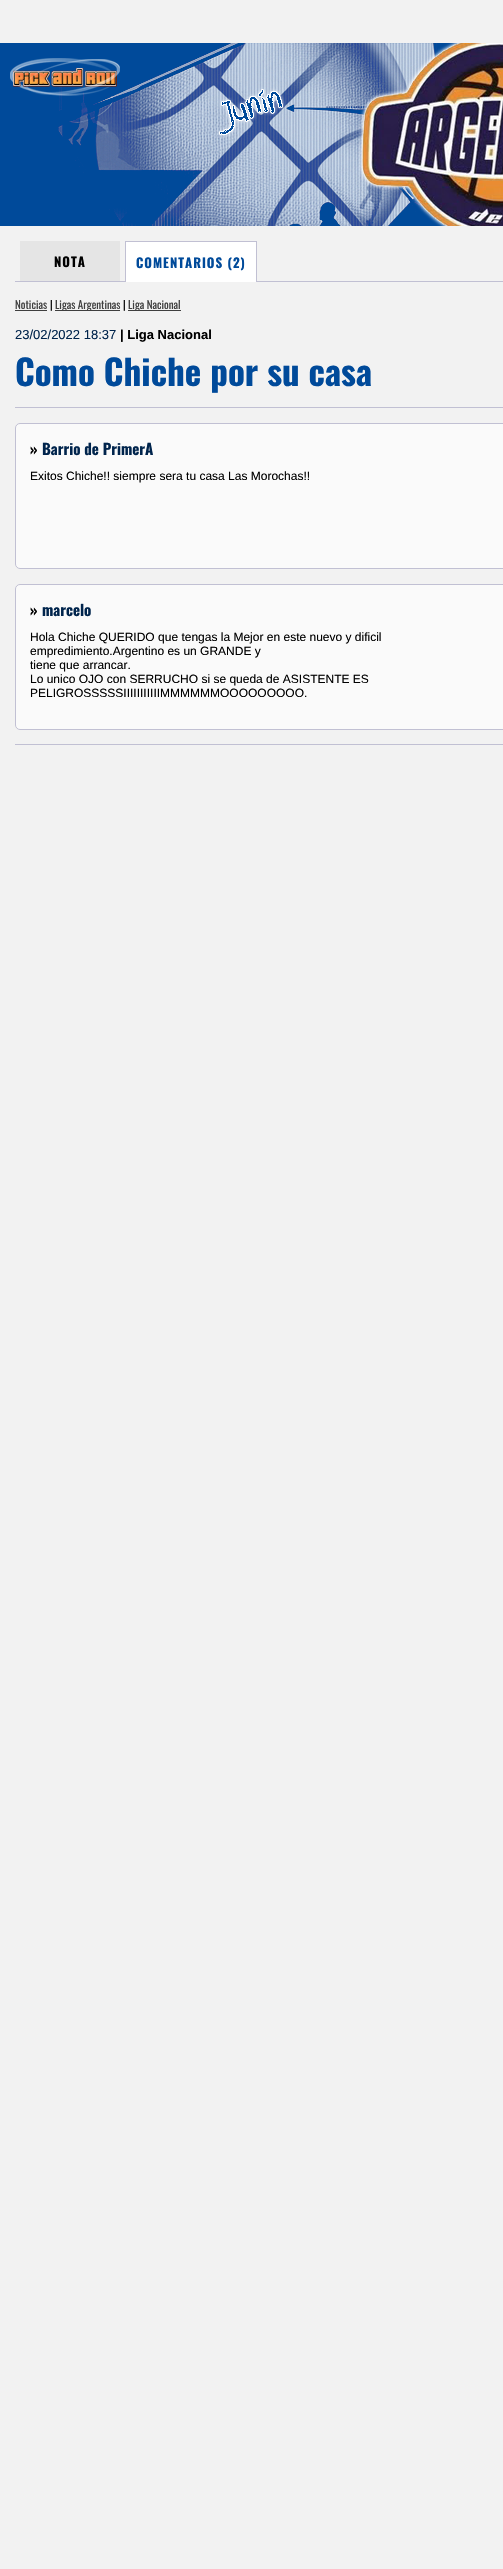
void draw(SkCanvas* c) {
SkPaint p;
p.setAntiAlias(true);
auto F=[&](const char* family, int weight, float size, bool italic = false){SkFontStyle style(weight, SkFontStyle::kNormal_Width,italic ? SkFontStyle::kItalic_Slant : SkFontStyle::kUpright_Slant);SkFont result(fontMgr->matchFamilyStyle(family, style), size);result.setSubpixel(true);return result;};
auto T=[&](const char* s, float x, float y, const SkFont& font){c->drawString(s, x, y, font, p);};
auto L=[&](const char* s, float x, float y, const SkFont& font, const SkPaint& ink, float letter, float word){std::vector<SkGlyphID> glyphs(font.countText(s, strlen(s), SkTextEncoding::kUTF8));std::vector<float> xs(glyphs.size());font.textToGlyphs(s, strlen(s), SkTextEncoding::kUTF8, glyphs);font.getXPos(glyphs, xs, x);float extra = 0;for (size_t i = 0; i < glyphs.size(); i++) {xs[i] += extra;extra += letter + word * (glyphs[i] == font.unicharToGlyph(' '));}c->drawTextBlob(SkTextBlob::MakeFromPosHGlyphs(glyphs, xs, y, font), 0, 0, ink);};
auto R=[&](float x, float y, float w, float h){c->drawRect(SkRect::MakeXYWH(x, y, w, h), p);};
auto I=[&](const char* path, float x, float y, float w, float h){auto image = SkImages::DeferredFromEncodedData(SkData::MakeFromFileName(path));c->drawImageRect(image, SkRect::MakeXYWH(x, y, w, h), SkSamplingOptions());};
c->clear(0xfff2f2f2);
p.setColor(0xff004a9a);
R(0,43,58,183);
I("1.png",58,43,445,183);
I("2.png",10,58,110,38);
p.setColor(0xffc1c0d3);
R(15,281,488,1);
p.setColor(0xffe5e5e5);
R(20,241,100,40);
auto f1 = F("Oswald",700,13);
p.setColor(0xff000000);
L("NOTA",54,267,f1,p,1,0);
p.setColor(0xffffffff);
R(126,242,130,40);
p.setColor(0xffc1c0d3);
R(125,241,132,1);
R(256,241,1,41);
R(125,241,1,41);
p.setColor(0xff004a9a);
L("COMENTARIOS (2)",136,268,f1,p,1,0);
auto f2 = F("Oswald",400,11);
p.setColor(0xff3f3f3f);
T("Noticias",15,309,f2);
R(15,310,32,1);
p.setColor(0xff000000);
T("|",50,309,f2);
p.setColor(0xff3f3f3f);
R(55,310,65,1);
T("Ligas Argentinas",55,309,f2);
p.setColor(0xff000000);
T("|",123,309,f2);
p.setColor(0xff3f3f3f);
R(128,310,53,1);
T("Liga Nacional",128,309,f2);
auto f3 = F("Liberation Sans",400,13);
p.setColor(0xff00244c);
T("23/02/2022 18:37",15,339,f3);
auto f4 = F("Liberation Sans",700,13);
p.setColor(0xff000000);
T("| Liga Nacional",120,339,f4);
auto f5 = F("Oswald",700,35);
p.setColor(0xff004a9a);
T("Como Chiche por su casa",15,386,f5);
p.setColor(0xffc1c0d3);
R(15,407,488,1);
p.setColor(0xfffafafa);
c->drawRoundRect(SkRect::MakeXYWH(15.5,423.5,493,145),4.5,4.5,p);
p.setStroke(true);
p.setStrokeWidth(1);
p.setColor(0xffc1c0d3);
c->drawRoundRect(SkRect::MakeXYWH(15.5,423.5,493,145),4.5,4.5,p);
auto f6 = F("Oswald",700,15);
p.setStroke(false);
p.setColor(0xff000000);
T("»",30,455,f6);
p.setColor(0xff00244c);
T("Barrio de PrimerA",42,455,f6);
auto f7 = F("Liberation Sans",400,12);
p.setColor(0xff000000);
T("Exitos Chiche!! siempre sera tu casa Las Morochas!!",30,480,f7);
p.setColor(0xfffafafa);
c->drawRoundRect(SkRect::MakeXYWH(15.5,584.5,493,145),4.5,4.5,p);
p.setStroke(true);
p.setColor(0xffc1c0d3);
c->drawRoundRect(SkRect::MakeXYWH(15.5,584.5,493,145),4.5,4.5,p);
p.setStroke(false);
p.setColor(0xff000000);
T("»",30,616,f6);
p.setColor(0xff00244c);
T("marcelo",42,616,f6);
p.setColor(0xff000000);
T("Hola Chiche QUERIDO que tengas la Mejor en este nuevo y dificil",30,641,f7);
T("empredimiento.Argentino es un GRANDE y",30,655,f7);
T("tiene que arrancar.",30,669,f7);
T("Lo unico OJO con SERRUCHO si se queda de ASISTENTE ES",30,683,f7);
T("PELIGROSSSSSIIIIIIIIIIIMMMMMMOOOOOOOOO.",30,697,f7);
p.setColor(0xffc1c0d3);
R(15,744,488,1);
}
